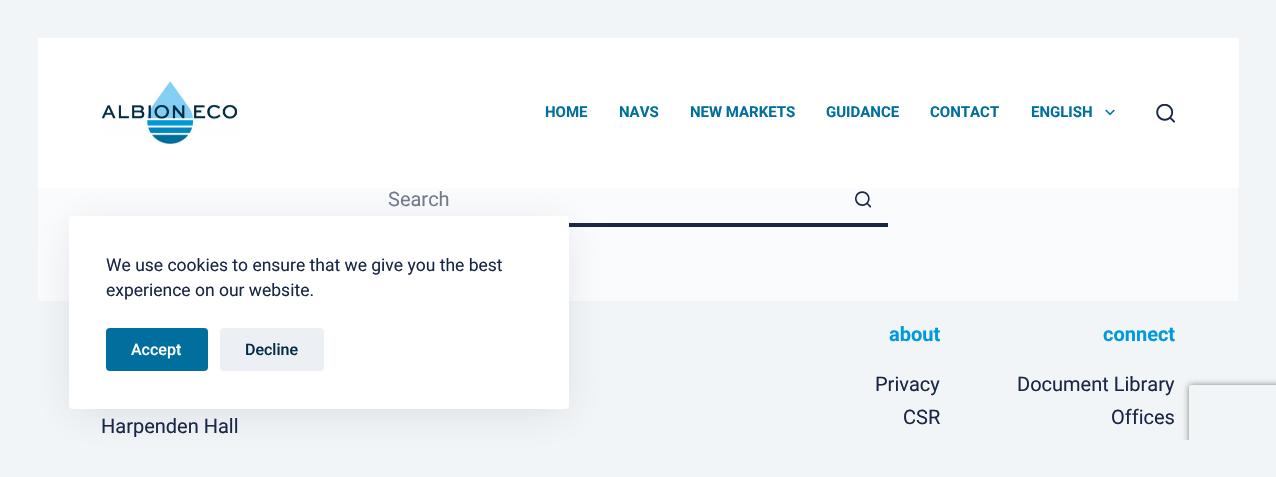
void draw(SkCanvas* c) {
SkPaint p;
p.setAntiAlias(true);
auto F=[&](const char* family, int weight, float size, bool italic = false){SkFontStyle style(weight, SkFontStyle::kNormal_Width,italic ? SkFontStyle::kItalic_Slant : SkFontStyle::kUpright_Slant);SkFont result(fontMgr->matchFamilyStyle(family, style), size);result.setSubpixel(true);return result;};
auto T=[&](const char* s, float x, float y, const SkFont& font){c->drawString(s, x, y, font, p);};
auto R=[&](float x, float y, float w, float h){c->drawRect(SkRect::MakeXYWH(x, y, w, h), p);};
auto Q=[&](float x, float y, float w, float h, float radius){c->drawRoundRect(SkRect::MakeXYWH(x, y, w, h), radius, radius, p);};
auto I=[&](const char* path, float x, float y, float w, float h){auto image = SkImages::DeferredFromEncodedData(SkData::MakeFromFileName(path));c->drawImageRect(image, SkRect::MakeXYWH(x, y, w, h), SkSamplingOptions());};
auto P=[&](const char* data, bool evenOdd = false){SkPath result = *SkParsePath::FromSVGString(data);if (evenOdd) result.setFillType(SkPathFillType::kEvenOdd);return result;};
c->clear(0xfffafbfc);
p.setStroke(true);
p.setStrokeWidth(38);
p.setColor(0xfff2f5f7);
c->drawRect(SkRect::MakeXYWH(19,-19,1238,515),p);
p.setStroke(false);
R(38,0,1200,38);
p.setColor(0xffffffff);
R(38,38,1201,150);
I("1.png",101,81,138,63);
auto f1 = F("Roboto",700,15);
p.setColor(0xff006f9e);
T("HOME",545,117,f1);
T("NAVS",619,117,f1);
T("NEW MARKETS",690,117,f1);
T("GUIDANCE",826,117,f1);
T("CONTACT",930,117,f1);
T("ENGLISH",1031,117,f1);
I("2.png",1105,109,10,7);
I("3.png",1156,104,19,19);
p.setColor(0xff192745);
R(569,223,319,4);
auto f2 = F("Roboto",400,20);
p.setColor(0xff737c8e);
T("Search",388,206,f2);
I("4.png",855,191,16,17);
p.setStroke(true);
p.setStrokeWidth(1.9);
p.setStrokeCap(SkPaint::kRound_Cap);
p.setColor(0xfffafbfc);
c->drawPath(P("M858 208c-4.5-2.5-6-8-3.5-12.5"),p);
p.setStroke(false);
p.setColor(0xfff2f5f7);
R(38,301,1200,139);
auto f3 = F("Roboto",700,20);
p.setColor(0xff0099db);
T("about",889,341,f3);
p.setColor(0xff192745);
T("Privacy",875,391,f2);
T("CSR",903,424,f2);
p.setColor(0xff0099db);
T("connect",1103,341,f3);
p.setColor(0xff192745);
T("Document Library",1017,391,f2);
T("Offices",1111,424,f2);
T("Harpenden Hall",101,433,f2);
c->save();
c->clipPath(P("M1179 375h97v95h-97zm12.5 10h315c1.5 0 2.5 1 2.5 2.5v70c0 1.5-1 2.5-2.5 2.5h-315c-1.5 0-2.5-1-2.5-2.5v-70c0-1.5 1-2.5 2.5-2.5z",true),true);
p.setColor(0xff808080);
p.setMaskFilter(SkMaskFilter::MakeBlur(kNormal_SkBlurStyle, 3));
c->drawRoundRect(SkRect::MakeXYWH(1189,385,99,75),2.5,2.5,p);
p.setMaskFilter(nullptr);
c->restore();
p.setColor(0xfff2f5f7);
R(38,440,1238,37);
p.setColor(0x26223865);
p.setMaskFilter(SkMaskFilter::MakeBlur(kNormal_SkBlurStyle, 19));
c->drawRect(SkRect::MakeXYWH(75,229,488,180),p);
p.setMaskFilter(nullptr);
p.setColor(0xffffffff);
Q(69,216,500,193,4);
auto f4 = F("Roboto",400,17.5);
p.setColor(0xff192745);
T("We use cookies to ensure that we give you the best",106,271,f4);
T("experience on our website.",106,296,f4);
p.setColor(0xff006f9e);
Q(106,328,102,43,4);
auto f5 = F("Roboto",500,16);
p.setColor(0xffffffff);
T("Accept",131,355,f5);
p.setColor(0xffeceff3);
Q(220,328,104,43,4);
p.setColor(0xff002e45);
T("Decline",245,355,f5);
}
